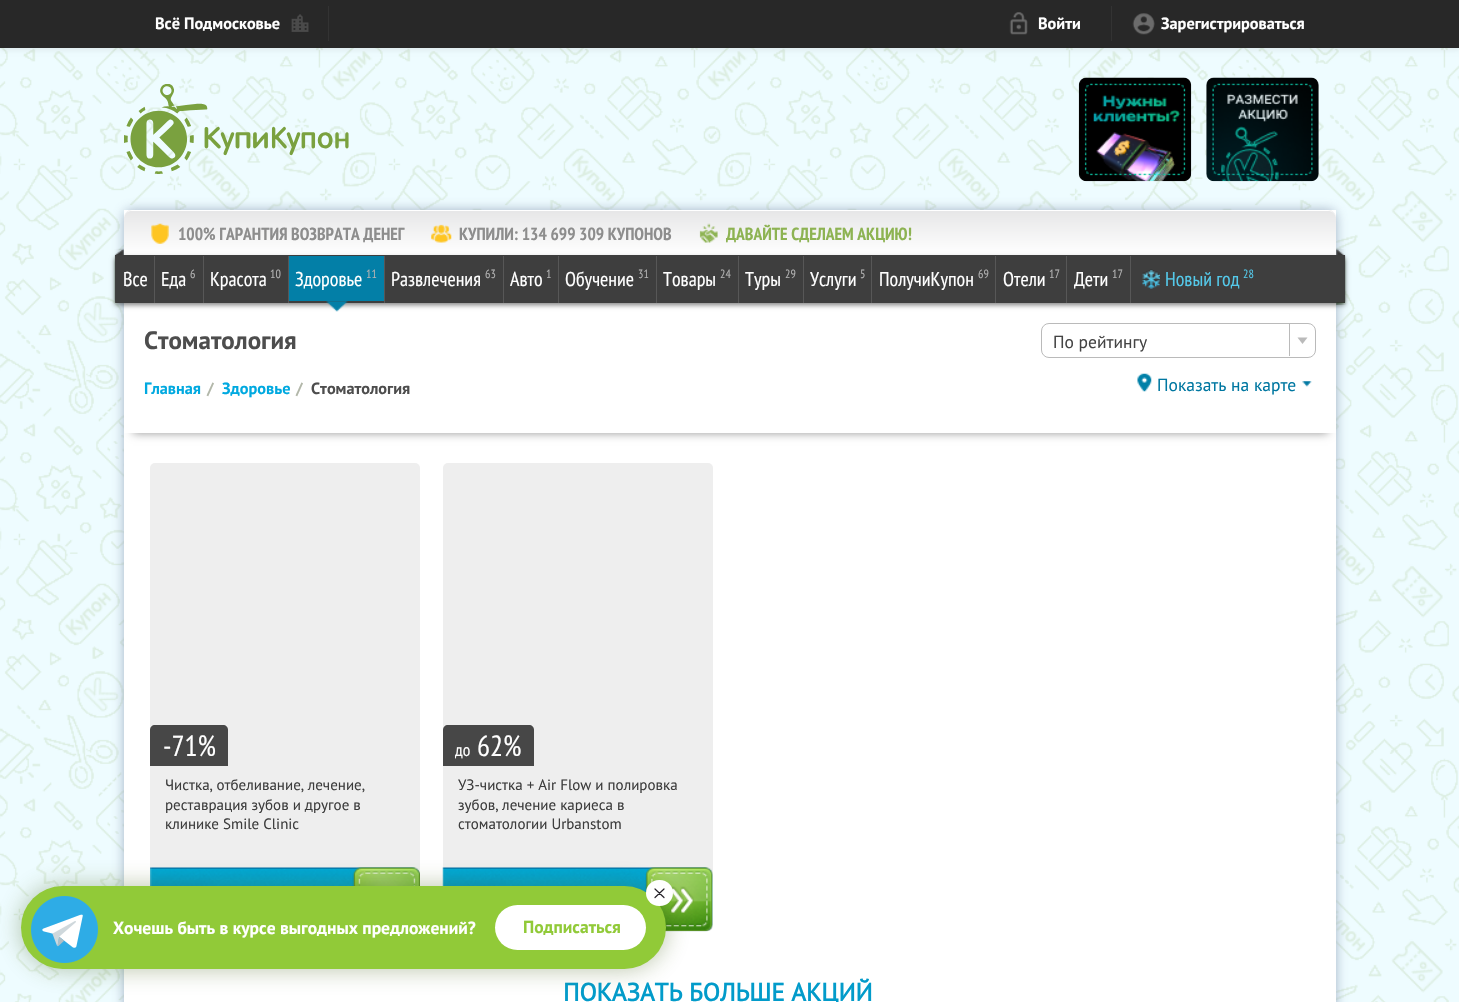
void draw(SkCanvas* c) {
SkPaint p;
p.setAntiAlias(true);
auto F=[&](const char* family, int weight, float size, bool italic = false){SkFontStyle style(weight, SkFontStyle::kNormal_Width,italic ? SkFontStyle::kItalic_Slant : SkFontStyle::kUpright_Slant);SkFont result(fontMgr->matchFamilyStyle(family, style), size);result.setSubpixel(true);return result;};
auto T=[&](const char* s, float x, float y, const SkFont& font){c->drawString(s, x, y, font, p);};
auto R=[&](float x, float y, float w, float h){c->drawRect(SkRect::MakeXYWH(x, y, w, h), p);};
auto Q=[&](float x, float y, float w, float h, float radius){c->drawRoundRect(SkRect::MakeXYWH(x, y, w, h), radius, radius, p);};
auto I=[&](const char* path, float x, float y, float w, float h){auto image = SkImages::DeferredFromEncodedData(SkData::MakeFromFileName(path));c->drawImageRect(image, SkRect::MakeXYWH(x, y, w, h), SkSamplingOptions());};
auto P=[&](const char* data, bool evenOdd = false){SkPath result = *SkParsePath::FromSVGString(data);if (evenOdd) result.setFillType(SkPathFillType::kEvenOdd);return result;};
c->clear(0xffffffff);
I("1.png",0,48,1459,954);
p.setColor(0x12000000);
p.setMaskFilter(SkMaskFilter::MakeBlur(kNormal_SkBlurStyle, 2.5));
c->drawRect(SkRect::MakeXYWH(0,3,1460,47),p);
p.setMaskFilter(nullptr);
p.setColor(0xff282828);
R(0,0,1459,48);
auto f1 = F("PT Sans",700,16.25);
p.setColor(0xffffffff);
T("Всё Подмосковье",155,29,f1);
I("2.png",291,14,18,18);
p.setColor(0xff333333);
R(328,6,1,35);
I("3.png",1009,12,19,23);
p.setColor(0xffffffff);
T("Войти",1038,29,f1);
p.setColor(0xff333333);
R(1111,6,1,35);
I("4.png",1132,13,23,22);
p.setColor(0xffffffff);
T("Зарегистрироваться",1161,29,f1);
I("5.png",124,84,225,90);
I("6.png",1078,77,114,105);
I("7.png",1206,77,113,105);
p.setColor(0xcc909eb7);
p.setMaskFilter(SkMaskFilter::MakeBlur(kNormal_SkBlurStyle, 6));
c->drawRoundRect(SkRect::MakeXYWH(124,210,1212,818),8,8,p);
p.setMaskFilter(nullptr);
p.setColor(0xffffffff);
R(124,210,1212,792);
{
const SkColor colors[] = {0xffe6e6e7,0xffffffff};
const float stops[] = {0,1};
const SkPoint ends[] = {{730,210}, {730,255}};
p.setShader(SkGradientShader::MakeLinear(ends, colors, stops, 2, SkTileMode::kClamp));
p.setAlpha(255);
}
c->drawPath(P("M132 210h1196c4.5 0 8 3.5 8 8v37h-1212v-37c0-4.5 3.5-8 8-8z"),p);
p.setShader(nullptr);
p.setColor(0xffffffff);
c->drawPath(P("M131 211h1198c4 0 7 4 7 8v-1c0-4-4-8-8-8h-1196c-4 0-8 4-8 8v1c0-4 3-8 7-8z"),p);
I("8.png",151,223,18,21);
auto f2 = F("PT Sans Narrow",700,17.5);
p.setColor(0xff8d8d8d);
T("100% ГАРАНТИЯ ВОЗВРАТА ДЕНЕГ",178,240,f2);
I("9.png",431,224,21,19);
T("КУПИЛИ: 134 699 309 КУПОНОВ",459,240,f2);
I("10.png",699,223,19,20);
p.setColor(0xff8db352);
T("ДАВАЙТЕ СДЕЛАЕМ АКЦИЮ!",726,240,f2);
p.setColor(0x80000000);
p.setMaskFilter(SkMaskFilter::MakeBlur(kNormal_SkBlurStyle, 2.5));
c->drawRect(SkRect::MakeXYWH(115,258,1230,47),p);
p.setMaskFilter(nullptr);
p.setColor(0xff3e3e3e);
R(115,255,1230,48);
p.setColor(0xff575757);
R(115,256,1,47);
I("11.png",113,248,11,55);
auto f3 = F("PT Sans Narrow",400,20);
p.setColor(0xffffffff);
T("Все",123,286,f3);
p.setColor(0xff575757);
R(154,256,1,47);
p.setColor(0xffffffff);
T("Еда",161,286,f3);
auto f4 = F("PT Sans Narrow",400,12);
p.setColor(0xffb2b2b2);
T("6",190,278,f4);
p.setColor(0xff575757);
R(203,256,1,47);
p.setColor(0xffffffff);
T("Красота",210,286,f3);
p.setColor(0xffb2b2b2);
T("10",270,278,f4);
p.setColor(0xff575757);
R(288,256,1,47);
p.setColor(0xff037fa7);
R(289,256,95,45);
p.setColor(0xffffffff);
T("Здоровье",295,286,f3);
p.setColor(0xffb2b2b2);
T("11",366,278,f4);
c->save();
c->clipPath(P("M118 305h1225v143h-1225zm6-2h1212v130h-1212z",true),true);
p.setColor(0x6b000000);
p.setMaskFilter(SkMaskFilter::MakeBlur(kNormal_SkBlurStyle, 4.5));
c->drawRect(SkRect::MakeXYWH(133,320,1195,113),p);
p.setMaskFilter(nullptr);
c->restore();
I("12.png",326,301,22,11);
p.setColor(0xff575757);
R(384,256,1,47);
p.setColor(0xffffffff);
T("Развлечения",391,286,f3);
p.setColor(0xffb2b2b2);
T("63",485,278,f4);
p.setColor(0xff575757);
R(503,256,1,47);
p.setColor(0xffffffff);
T("Авто",510,286,f3);
p.setColor(0xffb2b2b2);
T("1",546,278,f4);
p.setColor(0xff575757);
R(558,256,1,47);
p.setColor(0xffffffff);
T("Обучение",565,286,f3);
p.setColor(0xffb2b2b2);
T("31",638,278,f4);
p.setColor(0xff575757);
R(656,256,1,47);
p.setColor(0xffffffff);
T("Товары",663,286,f3);
p.setColor(0xffb2b2b2);
T("24",720,278,f4);
p.setColor(0xff575757);
R(738,256,1,47);
p.setColor(0xffffffff);
T("Туры",745,286,f3);
p.setColor(0xffb2b2b2);
T("29",785,278,f4);
p.setColor(0xff575757);
R(803,256,1,47);
p.setColor(0xffffffff);
T("Услуги",810,286,f3);
p.setColor(0xffb2b2b2);
T("5",860,278,f4);
p.setColor(0xff575757);
R(871,256,1,47);
p.setColor(0xffffffff);
T("ПолучиКупон",879,286,f3);
p.setColor(0xffb2b2b2);
T("69",978,278,f4);
p.setColor(0xff575757);
R(995,256,1,47);
p.setColor(0xffffffff);
T("Отели",1003,286,f3);
p.setColor(0xffb2b2b2);
T("17",1049,278,f4);
p.setColor(0xff575757);
R(1066,256,1,47);
p.setColor(0xffffffff);
T("Дети",1074,286,f3);
p.setColor(0xffb2b2b2);
T("17",1112,278,f4);
p.setColor(0xff575757);
R(1130,256,1,47);
I("13.png",1142,269,18,20);
p.setColor(0xff54c9ea);
T("Новый год",1165,286,f3);
T("28",1243,278,f4);
I("14.png",1336,248,11,57);
auto f5 = F("PT Sans",700,25);
p.setColor(0xff4d4d4d);
T("Стоматология",144,349,f5);
p.setStroke(true);
p.setStrokeWidth(1);
p.setColor(0xffbababa);
c->drawRoundRect(SkRect::MakeXYWH(1041.5,323.5,274,34),7.5,7.5,p);
auto f6 = F("PT Sans",400,17.5);
p.setStroke(false);
p.setColor(0xff444444);
T("По рейтингу",1053,348,f6);
p.setColor(0xffbababa);
R(1289,324,1,32);
c->drawPath(P("M1297.5 337.5h10l-5 6.5z"),p);
p.setColor(0xff00a9e0);
T("Главная",144,394,f1);
p.setColor(0xffb2b7a9);
T("/",207,394,f1);
p.setColor(0xff00a9e0);
T("Здоровье",222,394,f1);
p.setColor(0xffb2b7a9);
T("/",296,394,f1);
p.setColor(0xff4d4d4d);
T("Стоматология",311,394,f1);
I("15.png",1137,373,15,19);
p.setColor(0xff0077a1);
T("Показать на карте",1157,391,f6);
I("16.png",1302,381,10,6);
p.setColor(0xffeeeeee);
Q(150,463,270,468,5);
p.setColor(0xff474747);
c->drawPath(P("M155 725h68c3 0 5 2 5 5v36h-78v-36c0-3 2-5 5-5z"),p);
auto f7 = F("PT Sans Narrow",400,29);
p.setColor(0xffffffff);
T("-71%",163,756,f7);
auto f8 = F("PT Sans",400,15);
p.setColor(0xff3d3d3d);
T("Чистка, отбеливание, лечение,",165,790,f8);
T("реставрация зубов и другое в",165,810,f8);
T("клинике Smile Clinic",165,829,f8);
I("17.png",150,867,270,19);
I("18.png",352,867,68,19);
p.setColor(0xffeeeeee);
Q(443,463,270,468,5);
p.setColor(0xff474747);
c->drawPath(P("M448 725h81c3 0 5 2 5 5v36h-91v-36c0-3 2-5 5-5z"),p);
auto f9 = F("PT Sans Narrow",400,17.5);
p.setColor(0xffffffff);
T("до",455,756,f9);
T("62%",477,756,f7);
p.setColor(0xff3d3d3d);
T("УЗ-чистка + Air Flow и полировка",458,790,f8);
T("зубов, лечение кариеса в",458,810,f8);
T("стоматологии Urbanstom",458,829,f8);
I("19.png",442,867,271,65);
I("20.png",645,867,68,65);
auto f10 = F("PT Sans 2",700,25);
p.setColor(0xff029bca);
T("ПОКАЗАТЬ БОЛЬШЕ АКЦИЙ",563,1001,f10);
p.setColor(0x664d6922);
p.setMaskFilter(SkMaskFilter::MakeBlur(kNormal_SkBlurStyle, 12.5));
c->drawRoundRect(SkRect::MakeXYWH(21,886,645,83),41.5,41.5,p);
p.setMaskFilter(nullptr);
p.setColor(0xff91ca38);
Q(21,886,645,83,41.5);
p.setColor(0xffffffff);
Q(646,880,27,26,13);
p.setStroke(true);
p.setStrokeWidth(1.2);
p.setStrokeCap(SkPaint::kRound_Cap);
p.setStrokeJoin(SkPaint::kRound_Join);
p.setColor(0xff27232a);
c->drawPath(P("M664 889l-9 8.5m9 0l-9-8.5z"),p);
I("21.png",31,896,67,67);
auto f11 = F("PT Sans",700,17.5);
p.setStroke(false);
p.setColor(0xffffffff);
T("Хочешь быть в курсе выгодных предложений?",113,934,f11);
Q(495,905,151,45,22.5);
p.setColor(0xff91ca38);
T("Подписаться",523,933,f11);
}
